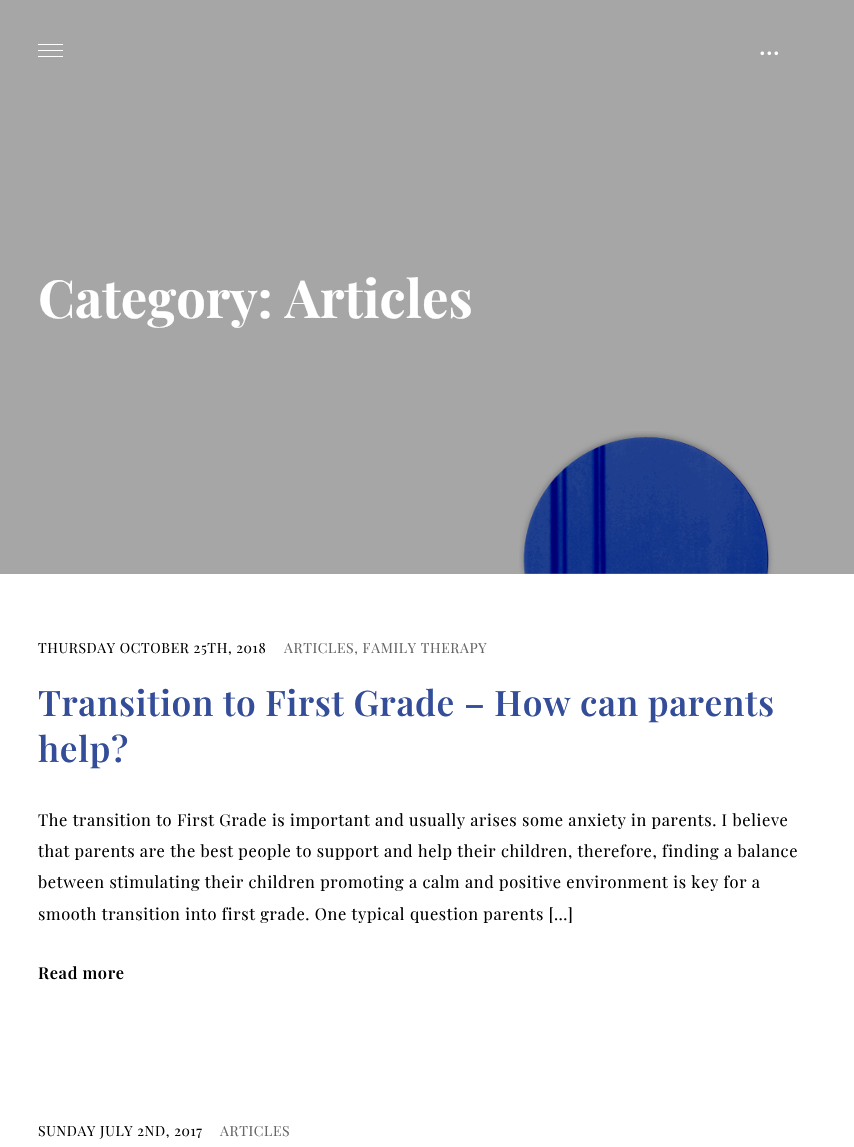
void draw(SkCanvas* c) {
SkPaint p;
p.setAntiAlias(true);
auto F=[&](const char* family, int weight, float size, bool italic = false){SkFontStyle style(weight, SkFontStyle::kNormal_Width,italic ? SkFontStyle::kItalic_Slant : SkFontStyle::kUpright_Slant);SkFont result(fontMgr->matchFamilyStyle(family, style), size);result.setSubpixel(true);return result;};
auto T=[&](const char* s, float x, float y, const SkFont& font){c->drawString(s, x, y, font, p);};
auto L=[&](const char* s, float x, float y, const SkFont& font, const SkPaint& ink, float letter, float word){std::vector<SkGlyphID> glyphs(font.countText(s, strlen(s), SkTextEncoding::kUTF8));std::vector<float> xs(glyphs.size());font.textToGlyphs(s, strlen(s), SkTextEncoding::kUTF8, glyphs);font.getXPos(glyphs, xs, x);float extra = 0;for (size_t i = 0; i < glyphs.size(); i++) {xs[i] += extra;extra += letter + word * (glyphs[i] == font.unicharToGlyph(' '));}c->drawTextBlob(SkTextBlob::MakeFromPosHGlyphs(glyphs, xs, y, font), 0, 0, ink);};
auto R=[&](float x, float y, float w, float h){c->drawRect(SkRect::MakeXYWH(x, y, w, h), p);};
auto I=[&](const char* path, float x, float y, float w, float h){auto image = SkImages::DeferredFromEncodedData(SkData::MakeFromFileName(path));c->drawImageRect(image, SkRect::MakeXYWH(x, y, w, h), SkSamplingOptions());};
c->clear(0xffffffff);
p.setColor(0xffa6a6a6);
R(0,0,854,574);
p.setColor(0xffffffff);
R(38,50,25,1);
R(38,44,25,1);
R(38,56,25,1);
I("1.png",760,51,18,5);
I("2.png",519,431,256,143);
auto f1 = F("Playfair Display",700,52.5);
T("Category: Articles",38,318,f1);
auto f2 = F("Playfair Display",400,14);
p.setColor(0xff000000);
L("THURSDAY OCTOBER 25TH, 2018",38,653,f2,p,.62,0);
p.setColor(0xff666666);
L("ARTICLES, FAMILY THERAPY",284,653,f2,p,.62,0);
auto f3 = F("Playfair Display",600,35.2);
p.setColor(0xff344d99);
L("Transition to First Grade – How can parents",38,716,f3,p,.62,0);
L("help?",38,762,f3,p,.62,0);
auto f4 = F("Playfair Display",400,16.4);
p.setColor(0xff000000);
L("The transition to First Grade is important and usually arises some anxiety in parents. I believe",38,826,f4,p,.62,0);
L("that parents are the best people to support and help their children, therefore, finding a balance",38,857,f4,p,.62,0);
L("between stimulating their children promoting a calm and positive environment is key for a",38,888,f4,p,.62,0);
L("smooth transition into first grade. One typical question parents […]",38,920,f4,p,.62,0);
auto f5 = F("Playfair Display",600,16.4);
L("Read more",38,979,f5,p,.62,0);
L("SUNDAY JULY 2ND, 2017",38,1136,f2,p,.62,0);
p.setColor(0xff666666);
L("ARTICLES",220,1136,f2,p,.62,0);
}
